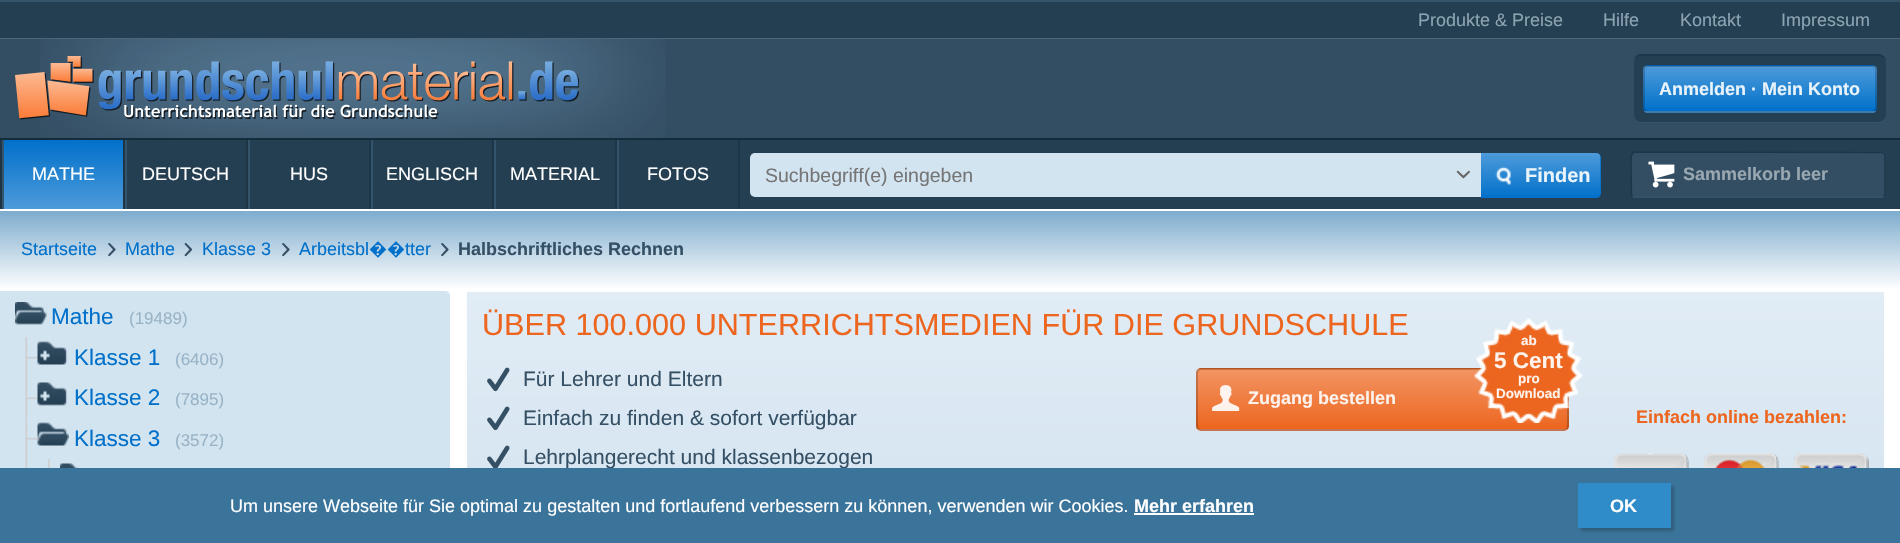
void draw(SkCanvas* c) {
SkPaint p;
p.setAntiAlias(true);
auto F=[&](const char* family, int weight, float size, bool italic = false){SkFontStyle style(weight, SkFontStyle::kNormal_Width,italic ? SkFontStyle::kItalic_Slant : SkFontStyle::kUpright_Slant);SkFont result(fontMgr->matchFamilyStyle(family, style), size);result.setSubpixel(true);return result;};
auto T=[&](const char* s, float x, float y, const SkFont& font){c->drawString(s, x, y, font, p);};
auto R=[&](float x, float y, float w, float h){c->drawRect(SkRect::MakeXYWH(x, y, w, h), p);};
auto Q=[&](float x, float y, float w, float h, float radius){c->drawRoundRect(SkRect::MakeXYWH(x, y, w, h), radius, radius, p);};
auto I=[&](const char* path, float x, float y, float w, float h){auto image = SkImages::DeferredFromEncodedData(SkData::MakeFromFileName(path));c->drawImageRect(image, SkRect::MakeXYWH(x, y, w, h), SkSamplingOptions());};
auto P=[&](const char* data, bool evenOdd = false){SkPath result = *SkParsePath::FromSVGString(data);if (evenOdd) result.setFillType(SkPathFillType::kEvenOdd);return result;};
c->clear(0xffffffff);
p.setColor(0xff34546b);
R(0,0,1900,2);
p.setColor(0xff253f52);
R(0,2,1900,36);
p.setColor(0xff4d6778);
R(0,38,1900,1);
auto f1 = F("Liberation Sans",400,18);
p.setColor(0xff8ca4b2);
T("Produkte & Preise",1418,26,f1);
T("Hilfe",1603,26,f1);
T("Kontakt",1680,26,f1);
T("Impressum",1781,26,f1);
p.setColor(0xff334e63);
R(0,39,1900,99);
p.setColor(0xff132c3c);
R(0,138,1900,2);
I("1.png",40,39,626,99);
I("2.png",15,56,564,64);
p.setColor(0xff253f52);
Q(1634,54,252,69,8);
p.setColor(0xff1c3649);
c->drawPath(P("M1641 54h237c3 0 6 2 8 5v1c-2-3-5-4-8-4h-237c-4 0-7 2-7 6c0-5 3-8 7-8z"),p);
p.setColor(0xff34546b);
c->drawPath(P("M1641 123h237c3 0 8-2 8-5c-2 2-5 4-8 4h-237c-4 0-7-3-7-6c0 4 3 7 7 7z"),p);
p.setColor(0xff0170ca);
Q(1643,65,234,48,5);
c->save();
c->clipPath(P("M1648 65h224c3 0 5 2 5 5v38c0 3-2 5-5 5h-224c-3 0-5-2-5-5v-38c0-3 2-5 5-5z"),true);
{
const SkColor colors[] = {0x4dffffff,0x00ffffff};
const float stops[] = {0,1};
const SkPoint ends[] = {{1760,66}, {1760,111}};
p.setShader(SkGradientShader::MakeLinear(ends, colors, stops, 2, SkTileMode::kClamp));
p.setAlpha(255);
}
R(1643,66,234,42);
{
const SkColor colors[] = {0x4dffffff,0x00ffffff};
const float stops[] = {0,1};
const SkPoint ends[] = {{1760,111}, {1760,156}};
p.setShader(SkGradientShader::MakeLinear(ends, colors, stops, 2, SkTileMode::kClamp));
p.setAlpha(255);
}
R(1643,111,234,2);
c->restore();
p.setStroke(true);
p.setStrokeWidth(2);
p.setShader(nullptr);
p.setColor(0x33000000);
c->drawRoundRect(SkRect::MakeXYWH(1644,66,232,46),4,4,p);
auto f2 = F("Liberation Sans",700,18);
p.setStroke(false);
p.setColor(0xffe9f3fa);
T("Anmelden · Mein Konto",1659,95,f2);
p.setColor(0xff253f52);
R(127,140,1773,69);
p.setColor(0xff1d3544);
R(0,140,2,69);
{
const SkColor colors[] = {0xff0170ca,0xff4d9bda};
const float stops[] = {0,1};
const SkPoint ends[] = {{63,140}, {63,209}};
p.setShader(SkGradientShader::MakeLinear(ends, colors, stops, 2, SkTileMode::kClamp));
p.setAlpha(255);
}
R(4,140,119,69);
p.setShader(nullptr);
p.setColor(0xff1d3544);
R(123,140,2,69);
p.setColor(0xff34546b);
R(2,140,2,69);
p.setColor(0xffffffff);
T("MATHE",32,180,f1);
p.setColor(0xff1d3544);
R(246,140,2,69);
p.setColor(0xff34546b);
R(125,140,2,69);
p.setColor(0xffffffff);
T("DEUTSCH",142,180,f1);
p.setColor(0xff1d3544);
R(369,140,2,69);
p.setColor(0xff34546b);
R(248,140,2,69);
p.setColor(0xffffffff);
T("HUS",290,180,f1);
p.setColor(0xff1d3544);
R(492,140,2,69);
p.setColor(0xff34546b);
R(371,140,2,69);
p.setColor(0xffffffff);
T("ENGLISCH",386,180,f1);
p.setColor(0xff1d3544);
R(615,140,2,69);
p.setColor(0xff34546b);
R(494,140,2,69);
p.setColor(0xffffffff);
T("MATERIAL",510,180,f1);
p.setColor(0xff1d3544);
R(738,140,2,69);
p.setColor(0xff34546b);
R(617,140,2,69);
p.setColor(0xffffffff);
T("FOTOS",647,180,f1);
p.setColor(0xff334e63);
Q(1631,152,255,46,5);
p.setStroke(true);
p.setStrokeWidth(1.5);
p.setColor(0xff1d3544);
c->drawPath(P("M1883.5 153.5c1 .5 1.5 1.5 1.5 2.5v37.5c0 1-.5 2-1.5 2.5"),p);
p.setColor(0xff34546b);
c->drawPath(P("M1883.5 196c-.5 1-1.5 1-2.5 1h-246c-1 0-2 0-2.5-1"),p);
p.setColor(0xff1c3649);
c->drawPath(P("M1632.5 196l-1-2l-.5-32c0-2.5-1-9.5 4-10l247 .5l1.5 1"),p);
I("3.png",1648,161,27,27);
p.setStroke(false);
p.setColor(0xff99a7b1);
T("Sammelkorb leer",1683,180,f2);
p.setColor(0xffd3e4f1);
Q(750,153,843,44,5);
auto f3 = F("Liberation Sans",400,19.5);
p.setColor(0xff757575);
T("Suchbegriff(e) eingeben",765,182,f3);
I("4.png",1456,170,14,9);
p.setColor(0xff0170ca);
c->drawPath(P("M1481 153h115c3 0 5 2 5 5v35c0 3-2 5-5 5h-115z"),p);
I("5.png",1481,153,120,42);
auto f4 = F("Liberation Sans",700,20);
p.setColor(0xffe9f3fa);
T("Finden",1525,182,f4);
{
const SkColor colors[] = {0xff7cabcd,0xffffffff};
const float stops[] = {0,1};
const SkPoint ends[] = {{950,210}, {950,290}};
p.setShader(SkGradientShader::MakeLinear(ends, colors, stops, 2, SkTileMode::kClamp));
p.setAlpha(255);
}
R(0,211,1900,77);
p.setShader(nullptr);
p.setColor(0xff0170ca);
T("Startseite",21,255,f1);
I("6.png",108,243,8,14);
T("Mathe",125,255,f1);
I("7.png",184,242,9,15);
T("Klasse 3",202,255,f1);
I("6.png",282,243,8,14);
T("Arbeitsbl",299,255,f1);
auto f5 = F("Noto Sans",400,18);
T("��",369,255,f5);
T("tter",405,255,f1);
I("6.png",441,243,8,14);
p.setColor(0xff355065);
T("Halbschriftliches Rechnen",458,255,f2);
p.setColor(0xffd3e4f1);
c->drawPath(P("M0 291h445c3 0 5 2 5 5v247h-450z"),p);
I("8.png",15,302,32,23);
auto f6 = F("Liberation Sans",400,22.5);
p.setColor(0xff0170ca);
T("Mathe",51,324,f6);
auto f7 = F("Liberation Sans",400,17);
p.setColor(0xff98b3c6);
T("(19489)",129,324,f7);
I("9.png",25,337,13,41);
I("10.png",37,341,31,24);
p.setColor(0xff0170ca);
T("Klasse 1",74,365,f6);
p.setColor(0xff98b3c6);
T("(6406)",175,365,f7);
I("11.png",25,378,13,41);
I("12.png",37,382,31,24);
p.setColor(0xff0170ca);
T("Klasse 2",74,405,f6);
p.setColor(0xff98b3c6);
T("(7895)",175,405,f7);
I("13.png",25,419,15,49);
I("14.png",37,422,32,24);
p.setColor(0xff0170ca);
T("Klasse 3",74,446,f6);
p.setColor(0xff98b3c6);
T("(3572)",175,446,f7);
I("15.png",47,459,3,9);
I("16.png",60,463,18,5);
{
const SkColor colors[] = {0xffe1ecf5,0xffd3e3f0};
const float stops[] = {0,1};
const SkPoint ends[] = {{1175,291}, {1175,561}};
p.setShader(SkGradientShader::MakeLinear(ends, colors, stops, 2, SkTileMode::kClamp));
p.setAlpha(255);
}
R(467,292,1417,176);
auto f8 = F("Liberation Sans",400,30.6);
p.setShader(nullptr);
p.setColor(0xffed661f);
T("ÜBER 100.000 UNTERRICHTSMEDIEN FÜR DIE GRUNDSCHULE",482,335,f8);
I("17.png",487,367,23,25);
auto f9 = F("Liberation Sans",400,21);
p.setColor(0xff355065);
T("Für Lehrer und Eltern",523,386,f9);
I("18.png",487,406,23,25);
T("Einfach zu finden & sofort verfügbar",523,425,f9);
I("19.png",487,445,23,23);
T("Lehrplangerecht und klassenbezogen",523,464,f9);
p.setColor(0xffed661f);
Q(1196,368,373,63,5);
c->save();
c->clipPath(P("M1201 368h363c3 0 5 2 5 5v53c0 3-2 5-5 5h-363c-3 0-5-2-5-5v-53c0-3 2-5 5-5z"),true);
{
const SkColor colors[] = {0x4dffffff,0x00ffffff};
const float stops[] = {0,1};
const SkPoint ends[] = {{1382,369}, {1382,429}};
p.setShader(SkGradientShader::MakeLinear(ends, colors, stops, 2, SkTileMode::kClamp));
p.setAlpha(255);
}
R(1196,369,373,56);
{
const SkColor colors[] = {0x4dffffff,0x00ffffff};
const float stops[] = {0,1};
const SkPoint ends[] = {{1382,429}, {1382,489}};
p.setShader(SkGradientShader::MakeLinear(ends, colors, stops, 2, SkTileMode::kClamp));
p.setAlpha(255);
}
R(1196,429,373,2);
c->restore();
p.setStroke(true);
p.setStrokeWidth(2);
p.setShader(nullptr);
p.setColor(0x33000000);
c->drawRoundRect(SkRect::MakeXYWH(1197,369,371,61),4,4,p);
I("20.png",1212,385,28,26);
p.setStroke(false);
p.setColor(0xfffdf2ec);
T("Zugang bestellen",1248,404,f2);
I("21.png",1474,318,109,105);
auto f10 = F("Liberation Sans",700,13.5);
T("ab",1521,345,f10);
auto f11 = F("Liberation Sans",700,22.5);
T("5 Cent",1494,368,f11);
T("pro",1518,383,f10);
T("Download",1496,398,f10);
p.setColor(0xffed661f);
T("Einfach online bezahlen:",1636,423,f2);
I("22.png",1614,453,75,15);
I("23.png",1704,453,75,15);
I("24.png",1794,453,75,15);
p.setColor(0xff3b749a);
R(0,468,1900,75);
p.setColor(0xffffffff);
T("Um unsere Webseite für Sie optimal zu gestalten und fortlaufend verbessern zu können, verwenden wir Cookies.",230,512,f1);
T("Mehr erfahren",1134,512,f2);
R(1134,513,120,2);
p.setColor(0x33000000);
p.setMaskFilter(SkMaskFilter::MakeBlur(kNormal_SkBlurStyle, 1.5));
c->drawRect(SkRect::MakeXYWH(1581,486,93,45),p);
p.setMaskFilter(nullptr);
p.setColor(0xff308cc9);
R(1578,483,93,45);
p.setColor(0xffffffff);
T("OK",1610,512,f2);
}
